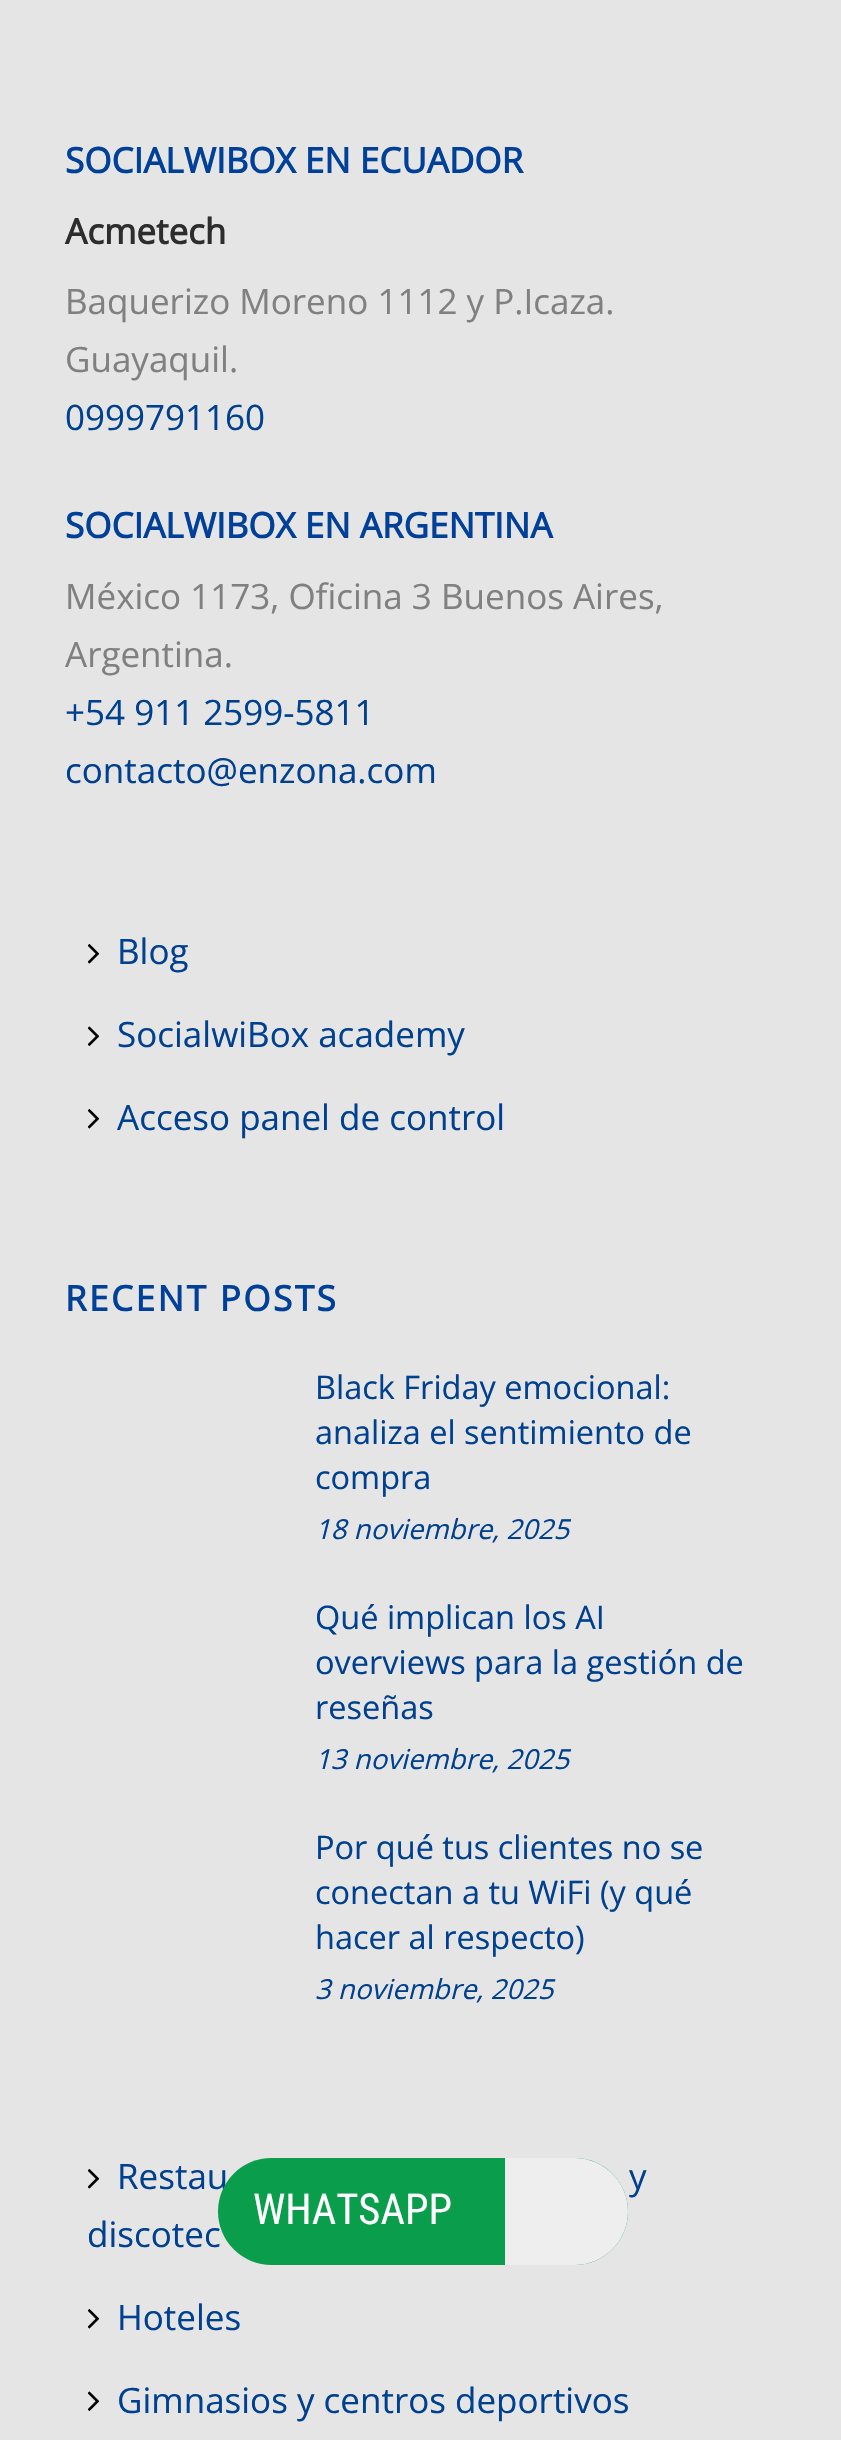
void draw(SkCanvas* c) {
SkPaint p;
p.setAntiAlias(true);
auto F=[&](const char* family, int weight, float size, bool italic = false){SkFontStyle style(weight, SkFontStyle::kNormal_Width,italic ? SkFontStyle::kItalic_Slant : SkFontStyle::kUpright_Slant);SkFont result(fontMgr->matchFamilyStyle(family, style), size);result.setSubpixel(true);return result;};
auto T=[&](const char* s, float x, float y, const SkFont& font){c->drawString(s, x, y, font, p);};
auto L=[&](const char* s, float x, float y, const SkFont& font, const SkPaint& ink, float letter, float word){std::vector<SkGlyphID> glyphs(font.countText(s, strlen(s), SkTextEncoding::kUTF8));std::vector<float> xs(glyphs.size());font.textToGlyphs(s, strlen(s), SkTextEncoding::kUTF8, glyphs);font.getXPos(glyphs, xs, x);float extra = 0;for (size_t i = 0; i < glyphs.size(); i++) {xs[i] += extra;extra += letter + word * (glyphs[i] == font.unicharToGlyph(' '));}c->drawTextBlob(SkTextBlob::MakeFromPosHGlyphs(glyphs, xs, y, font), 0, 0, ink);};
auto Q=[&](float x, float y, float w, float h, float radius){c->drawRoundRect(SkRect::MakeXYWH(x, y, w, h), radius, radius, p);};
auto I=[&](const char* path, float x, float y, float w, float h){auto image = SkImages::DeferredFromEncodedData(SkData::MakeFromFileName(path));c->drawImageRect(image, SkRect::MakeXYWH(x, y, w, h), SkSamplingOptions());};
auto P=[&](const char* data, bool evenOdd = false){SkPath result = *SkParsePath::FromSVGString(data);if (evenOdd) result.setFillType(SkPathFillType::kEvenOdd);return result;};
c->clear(0xffe4e5e4);
auto f1 = F("Open Sans",700,35);
p.setColor(0xff004099);
T("SOCIALWIBOX EN ECUADOR",65,173,f1);
p.setColor(0xff2d2d2d);
T("Acmetech",65,244,f1);
auto f2 = F("Open Sans",400,35);
p.setColor(0xff808080);
T("Baquerizo Moreno 1112 y P.Icaza.",65,314,f2);
T("Guayaquil.",65,372,f2);
p.setColor(0xff004090);
T("0999791160",65,430,f2);
p.setColor(0xff004099);
T("SOCIALWIBOX EN ARGENTINA",65,538,f1);
p.setColor(0xff808080);
T("México 1173, Oficina 3 Buenos Aires,",65,609,f2);
T("Argentina.",65,667,f2);
p.setColor(0xff004090);
T("+54 911 2599-5811",65,725,f2);
T("contacto@enzona.com",65,783,f2);
I("1.png",88,944,12,20);
T("Blog",117,964,f2);
I("2.png",88,1026,12,20);
T("SocialwiBox academy",117,1047,f2);
I("1.png",88,1109,12,20);
T("Acceso panel de control",117,1130,f2);
p.setColor(0xff004099);
L("RECENT POSTS",65,1311,f1,p,2.5,0);
auto f3 = F("Open Sans",400,32.5);
p.setColor(0xff004090);
T("Black Friday emocional:",315,1399,f3);
T("analiza el sentimiento de",315,1444,f3);
T("compra",315,1489,f3);
auto f4 = F("Open Sans",400,27.5,true);
T("18 noviembre, 2025",315,1539,f4);
T("Qué implican los AI",315,1629,f3);
T("overviews para la gestión de",315,1674,f3);
T("reseñas",315,1719,f3);
T("13 noviembre, 2025",315,1769,f4);
T("Por qué tus clientes no se",315,1859,f3);
T("conectan a tu WiFi (y qué",315,1904,f3);
T("hacer al respecto)",315,1949,f3);
T("3 noviembre, 2025",315,1999,f4);
I("1.png",88,2169,12,20);
T("Restau",117,2189,f2);
T("y",629,2189,f2);
T("discotec",87,2247,f2);
I("1.png",88,2309,12,20);
T("Hoteles",117,2330,f2);
I("2.png",88,2391,12,20);
T("Gimnasios y centros deportivos",117,2413,f2);
p.setColor(0xff0a9d4c);
Q(218,2158,410,107,53.5);
auto f5 = F("Roboto Condensed",400,42.5);
p.setColor(0xffffffff);
T("WHATSAPP",253,2224,f5);
p.setColor(0xffeeeeee);
c->drawPath(P("M505 2158h69.5c29.5 0 53.5 24 53.5 53.5c0 29.5-24 53.5-53.5 53.5h-69.5z"),p);
}
